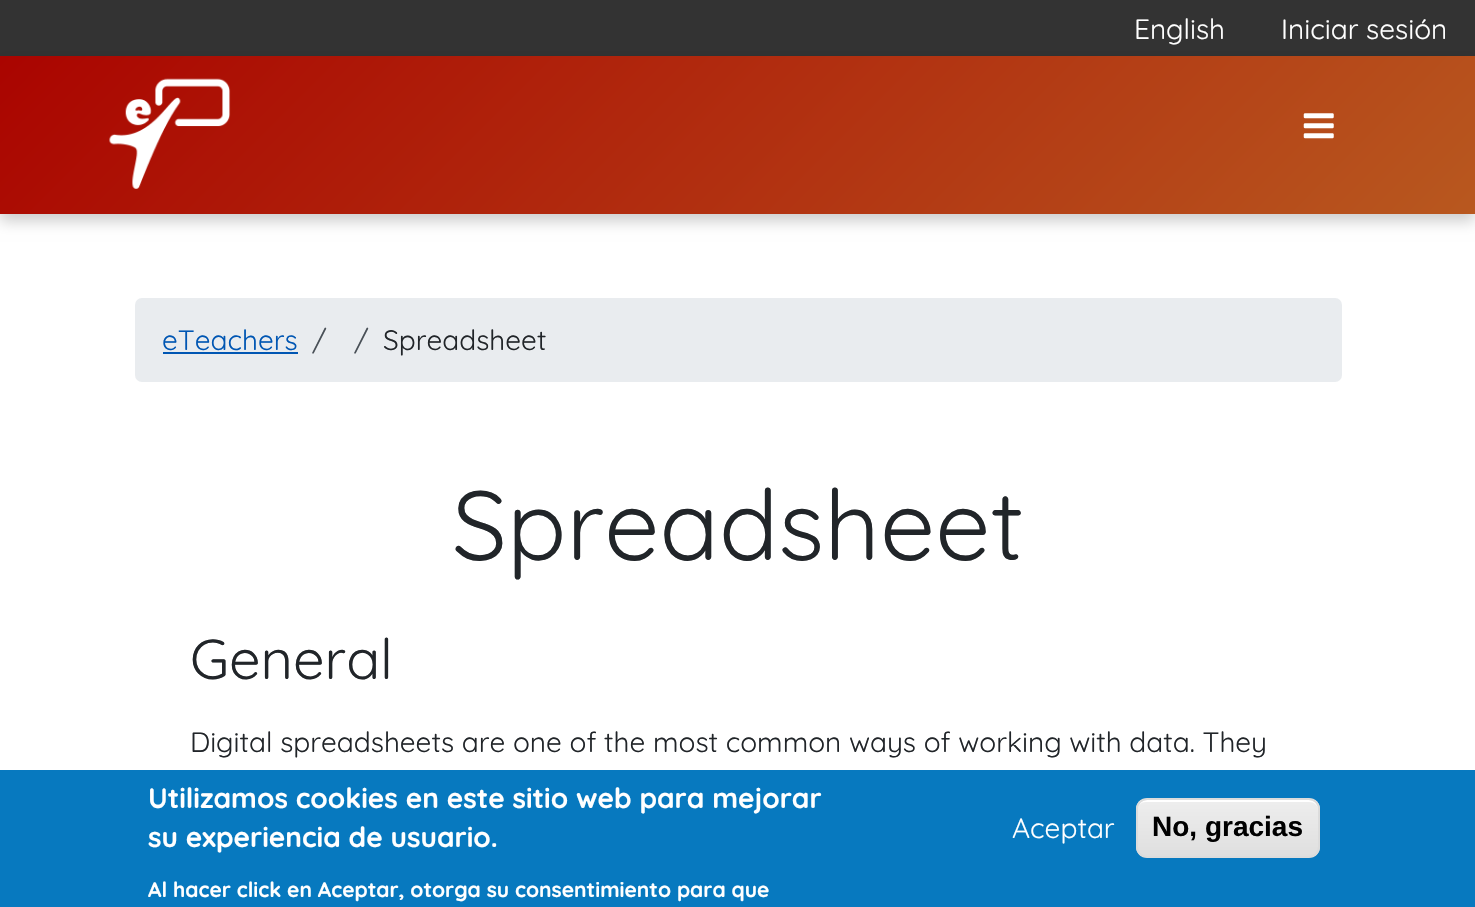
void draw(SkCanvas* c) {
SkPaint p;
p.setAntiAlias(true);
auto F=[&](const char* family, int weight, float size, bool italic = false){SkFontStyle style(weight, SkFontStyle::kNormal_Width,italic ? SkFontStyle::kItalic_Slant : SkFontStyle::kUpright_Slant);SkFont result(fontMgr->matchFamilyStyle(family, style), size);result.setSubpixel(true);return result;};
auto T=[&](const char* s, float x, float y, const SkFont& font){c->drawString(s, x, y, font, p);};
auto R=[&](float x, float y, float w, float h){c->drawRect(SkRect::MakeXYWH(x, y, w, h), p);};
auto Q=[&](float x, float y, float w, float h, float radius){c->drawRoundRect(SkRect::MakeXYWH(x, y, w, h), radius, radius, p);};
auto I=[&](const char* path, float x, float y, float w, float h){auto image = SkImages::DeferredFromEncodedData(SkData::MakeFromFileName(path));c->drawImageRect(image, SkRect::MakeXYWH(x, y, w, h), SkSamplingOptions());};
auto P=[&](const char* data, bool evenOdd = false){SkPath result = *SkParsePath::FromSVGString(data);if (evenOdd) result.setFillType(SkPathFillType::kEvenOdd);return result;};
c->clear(0xffffffff);
p.setColor(0xff333333);
R(0,0,1475,56);
auto f1 = F("Quicksand",300,28);
p.setColor(0xffffffff);
T("English",1134,39,f1);
T("Iniciar sesión",1281,39,f1);
p.setColor(0x33000000);
p.setMaskFilter(SkMaskFilter::MakeBlur(kNormal_SkBlurStyle, 7));
c->drawRect(SkRect::MakeXYWH(0,63,1475,158),p);
p.setMaskFilter(nullptr);
{
const SkColor colors[] = {0xffaa0400,0xffb8581f};
const float stops[] = {0,1};
const SkPoint ends[] = {{329,-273}, {1146,543}};
p.setShader(SkGradientShader::MakeLinear(ends, colors, stops, 2, SkTileMode::kClamp));
p.setAlpha(255);
}
R(0,56,1475,158);
I("1.png",109,78,122,111);
I("2.png",1303,113,31,26);
p.setShader(nullptr);
p.setColor(0xffe9ecef);
Q(135,298,1207,84,7);
p.setColor(0xff0056b3);
T("eTeachers",162,350,f1);
R(163,352,135,2);
p.setColor(0xff495057);
T("/",312,350,f1);
T("/",354,350,f1);
p.setColor(0xff212529);
T("Spreadsheet",383,350,f1);
auto f2 = F("Quicksand",300,98);
T("Spreadsheet",452,560,f2);
auto f3 = F("Quicksand",300,56);
T("General",190,679,f3);
T("Digital spreadsheets are one of the most common ways of working with data. They",190,752,f1);
p.setColor(0xff0779bf);
R(0,770,1475,137);
auto f4 = F("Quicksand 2",300,28);
p.setColor(0xffffffff);
T("Utilizamos cookies en este sitio web para mejorar",148,808,f4);
T("su experiencia de usuario.",148,847,f4);
auto f5 = F("Quicksand 2",300,21);
T("Al hacer click en Aceptar, otorga su consentimiento para que",148,897,f5);
T("Aceptar",1012,838,f1);
c->save();
c->clipPath(P("M1147 798h162c6 0 11 5 11 11v38c0 6-5 11-11 11h-162c-6 0-11-5-11-11v-38c0-6 5-11 11-11z"),true);
{
const SkColor colors[] = {0xffededed,0xffdfdfdf};
const float stops[] = {.05,1};
const SkPoint ends[] = {{1228,800}, {1228,856}};
p.setShader(SkGradientShader::MakeLinear(ends, colors, stops, 2, SkTileMode::kClamp));
p.setAlpha(255);
}
R(1136,800,184,56);
c->restore();
p.setShader(nullptr);
p.setColor(0xffffffff);
c->drawPath(P("M1146 802h163c5 0 9 3 9 8v-1c0-5-4-9-9-9h-162c-5 0-9 4-9 9v1c0-5 3-8 8-8z"),p);
p.setStroke(true);
p.setStrokeWidth(2);
p.setColor(0xffdcdcdc);
c->drawRoundRect(SkRect::MakeXYWH(1137,799,182,58),10,10,p);
auto f6 = F("Liberation Sans",700,28);
p.setStroke(false);
p.setColor(0xff000000);
T("No, gracias",1152,836,f6);
}
